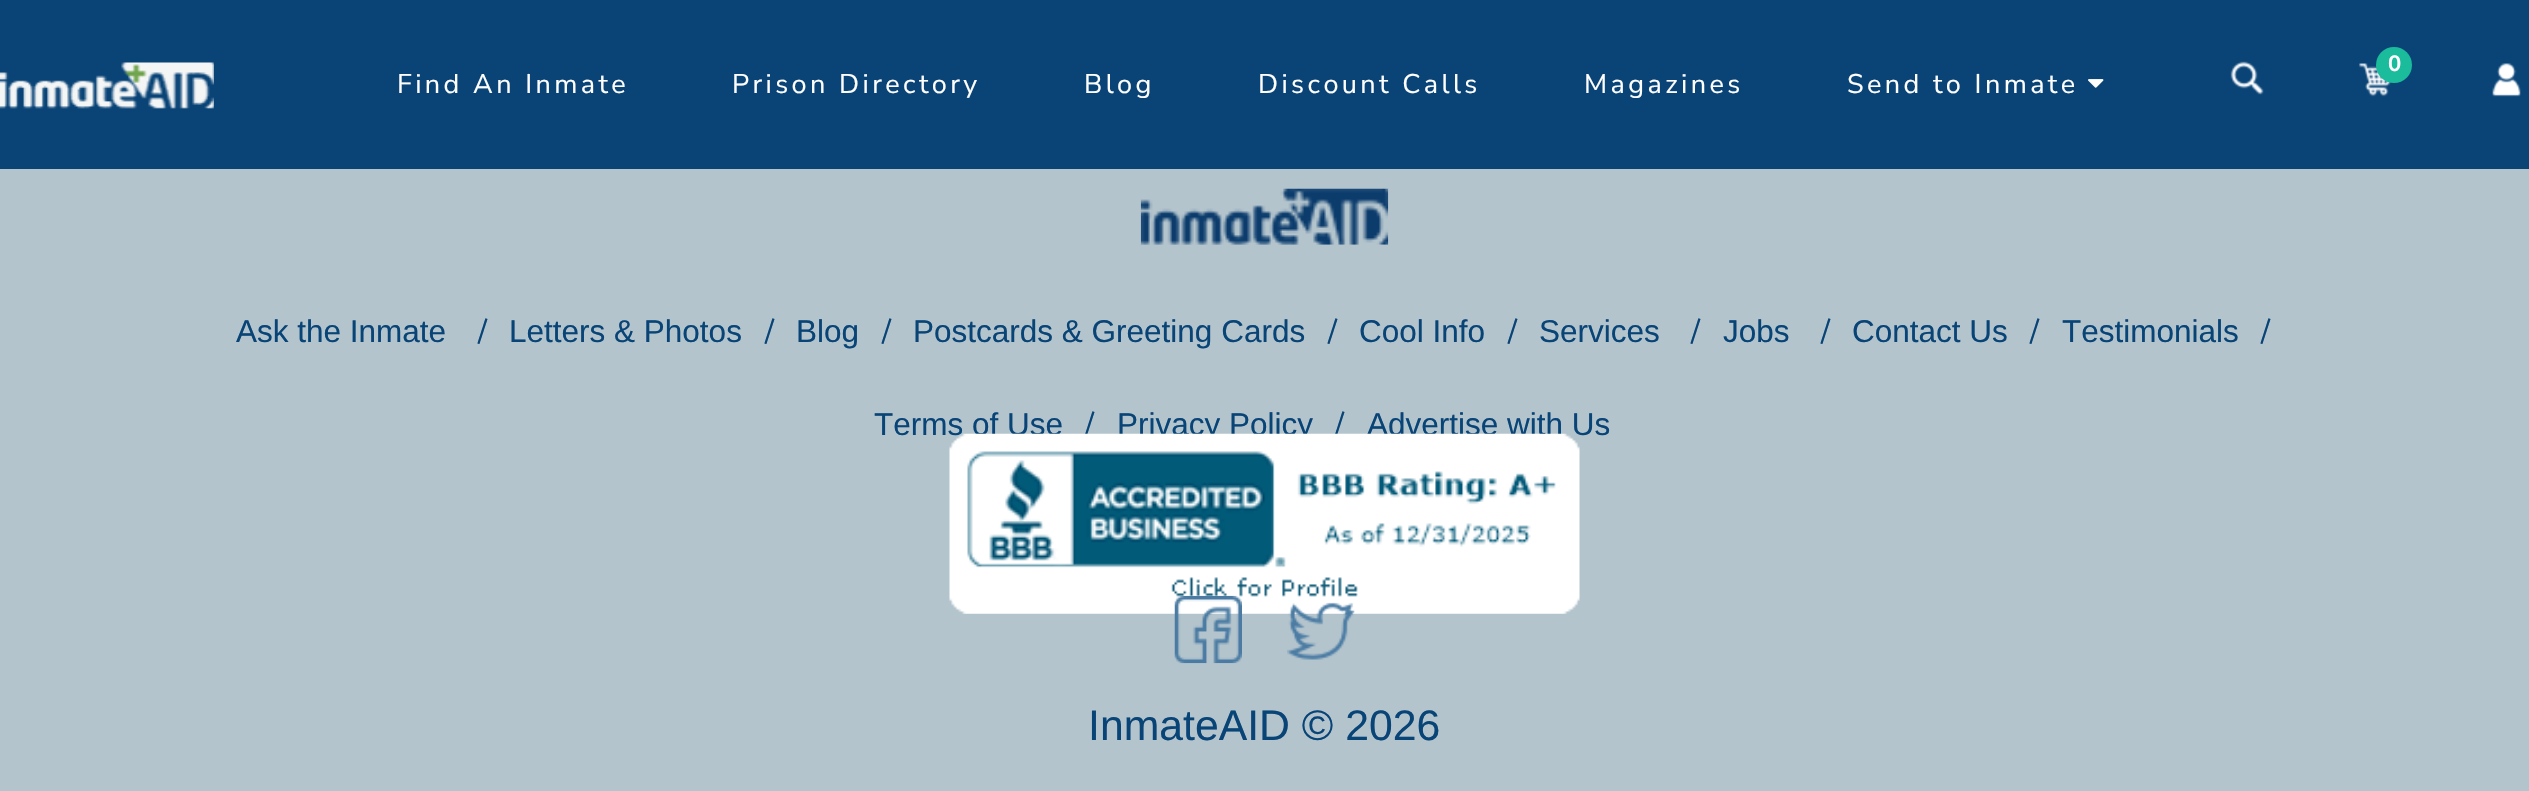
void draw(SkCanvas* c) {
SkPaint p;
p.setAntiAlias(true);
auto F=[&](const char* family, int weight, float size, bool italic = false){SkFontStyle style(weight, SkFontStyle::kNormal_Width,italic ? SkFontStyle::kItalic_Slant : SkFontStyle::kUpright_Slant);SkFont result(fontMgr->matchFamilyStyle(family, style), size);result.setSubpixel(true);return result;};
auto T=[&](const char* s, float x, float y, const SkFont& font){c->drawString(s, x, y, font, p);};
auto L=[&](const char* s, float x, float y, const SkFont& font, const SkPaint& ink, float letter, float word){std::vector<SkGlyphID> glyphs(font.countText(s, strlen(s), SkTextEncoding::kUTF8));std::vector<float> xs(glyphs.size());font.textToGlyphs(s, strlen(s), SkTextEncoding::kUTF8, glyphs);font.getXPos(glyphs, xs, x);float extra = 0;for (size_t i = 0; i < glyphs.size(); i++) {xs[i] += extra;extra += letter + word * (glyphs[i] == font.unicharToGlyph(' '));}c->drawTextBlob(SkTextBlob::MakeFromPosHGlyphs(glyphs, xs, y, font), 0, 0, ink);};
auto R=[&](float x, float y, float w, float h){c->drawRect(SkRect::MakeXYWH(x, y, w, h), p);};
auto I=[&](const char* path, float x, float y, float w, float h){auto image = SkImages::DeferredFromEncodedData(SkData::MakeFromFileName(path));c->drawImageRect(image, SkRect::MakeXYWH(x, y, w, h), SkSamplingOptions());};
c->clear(0xffb3c4cd);
p.setColor(0xff0a4477);
R(0,0,2529,169);
I("1.png",0,62,214,47);
I("2.png",2230,61,34,34);
I("3.png",2359,63,32,34);
p.setColor(0xff1abc9c);
c->drawCircle(2394,65,18,p);
auto f1 = F("Nunito Sans",700,22);
p.setColor(0xffffffff);
T("0",2388,71,f1);
I("4.png",2492,63,29,34);
auto f2 = F("Nunito Sans",400,27);
L("Find An Inmate",397,93,f2,p,3.4,0);
L("Prison Directory",732,93,f2,p,3.4,0);
L("Blog",1084,93,f2,p,3.4,0);
L("Discount Calls",1258,93,f2,p,3.4,0);
L("Magazines",1584,93,f2,p,3.4,0);
L("Send to Inmate",1847,93,f2,p,3.4,0);
I("5.png",2088,79,16,9);
I("6.png",1140,188,249,57);
auto f3 = F("Liberation Sans",400,31.5);
p.setColor(0xff094477);
T("Ask the Inmate",236,342,f3);
auto f4 = F("Nunito Sans",400,31.5);
T("/",478,342,f4);
T("Letters & Photos",509,342,f3);
T("/",765,342,f4);
T("Blog",796,342,f3);
T("/",882,342,f4);
T("Postcards & Greeting Cards",913,342,f3);
T("/",1328,342,f4);
T("Cool Info",1359,342,f3);
T("/",1508,342,f4);
T("Services",1539,342,f3);
T("/",1691,342,f4);
T("Jobs",1723,342,f3);
T("/",1821,342,f4);
T("Contact Us",1852,342,f3);
T("/",2030,342,f4);
T("Testimonials",2062,342,f3);
T("/",2261,342,f4);
T("Terms of Use",874,435,f3);
T("/",1085,435,f4);
T("Privacy Policy",1117,435,f3);
T("/",1335,435,f4);
T("Advertise with Us",1367,435,f3);
I("7.png",949,433,631,181);
I("8.png",1174,595,68,69);
I("9.png",1287,602,68,58);
auto f5 = F("Liberation Sans",400,42.75);
T("InmateAID © 2026",1088,740,f5);
}
